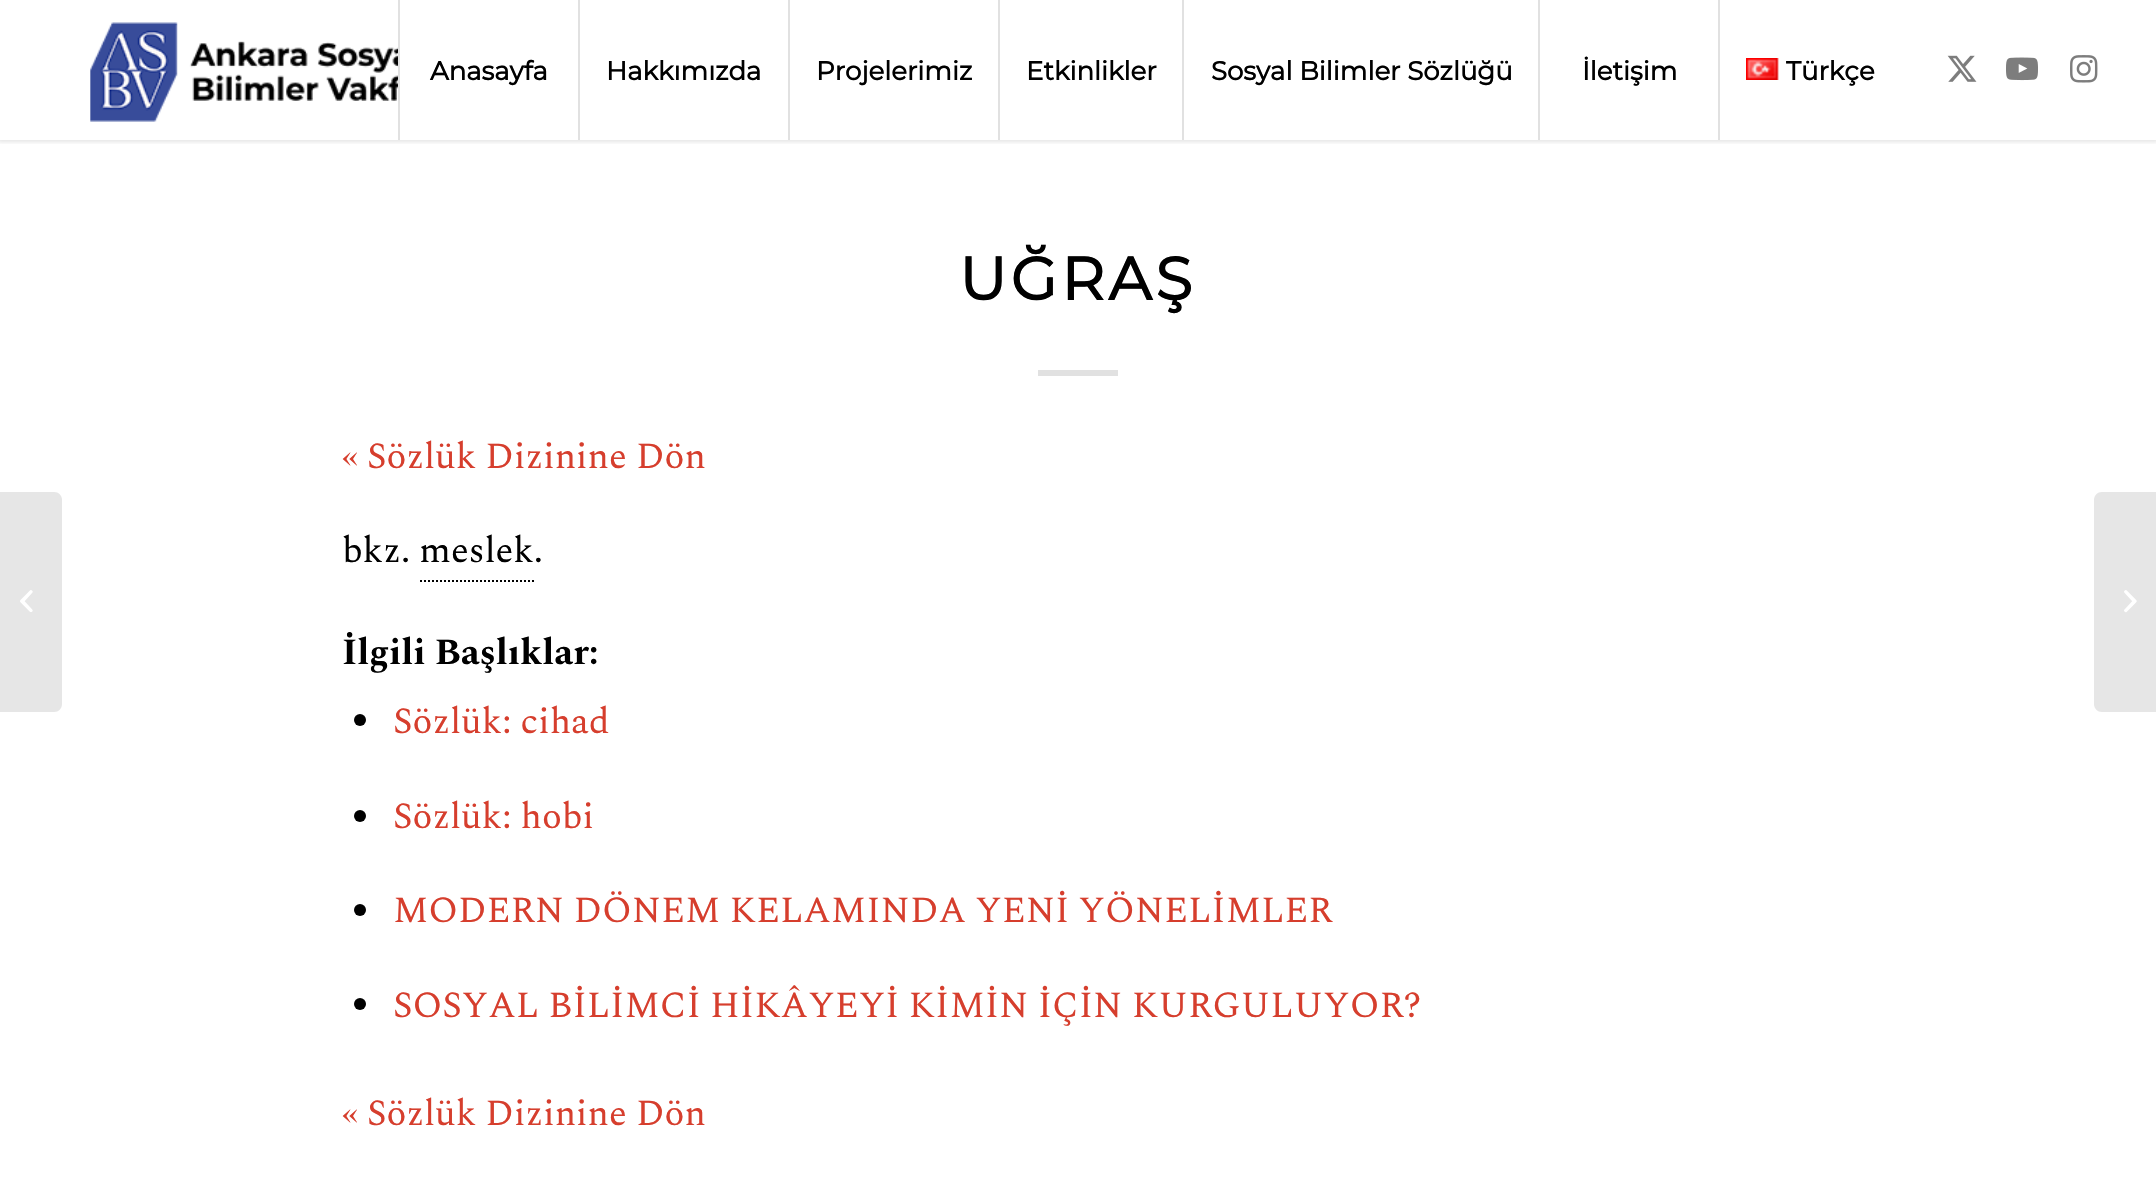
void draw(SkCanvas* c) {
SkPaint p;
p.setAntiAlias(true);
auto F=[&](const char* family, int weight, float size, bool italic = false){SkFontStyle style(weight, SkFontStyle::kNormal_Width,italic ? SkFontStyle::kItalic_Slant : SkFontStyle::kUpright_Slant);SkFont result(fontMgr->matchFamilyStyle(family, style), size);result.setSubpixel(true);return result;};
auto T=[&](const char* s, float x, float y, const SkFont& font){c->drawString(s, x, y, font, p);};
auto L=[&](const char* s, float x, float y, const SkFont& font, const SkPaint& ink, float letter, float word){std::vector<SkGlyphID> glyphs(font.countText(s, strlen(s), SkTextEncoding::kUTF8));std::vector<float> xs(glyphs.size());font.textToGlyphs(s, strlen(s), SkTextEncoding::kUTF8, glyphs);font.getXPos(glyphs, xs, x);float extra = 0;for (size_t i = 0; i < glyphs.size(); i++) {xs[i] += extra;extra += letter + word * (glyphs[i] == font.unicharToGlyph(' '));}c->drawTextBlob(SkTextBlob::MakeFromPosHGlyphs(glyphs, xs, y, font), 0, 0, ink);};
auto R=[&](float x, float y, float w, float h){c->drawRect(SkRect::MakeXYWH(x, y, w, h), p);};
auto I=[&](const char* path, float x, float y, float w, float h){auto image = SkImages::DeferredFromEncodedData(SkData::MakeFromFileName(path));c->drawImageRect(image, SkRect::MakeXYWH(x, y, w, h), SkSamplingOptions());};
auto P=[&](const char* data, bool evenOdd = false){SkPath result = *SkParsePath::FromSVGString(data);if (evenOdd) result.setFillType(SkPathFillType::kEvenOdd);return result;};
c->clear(0xffffffff);
c->save();
c->clipRect(SkRect::MakeXYWH(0,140,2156,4));
p.setColor(0x1a000000);
p.setMaskFilter(SkMaskFilter::MakeBlur(kNormal_SkBlurStyle, 2));
c->drawRect(SkRect::MakeXYWH(-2,-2,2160,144),p);
p.setMaskFilter(nullptr);
c->restore();
I("1.png",90,22,308,100);
p.setColor(0xffe1e1e1);
R(398,0,2,140);
auto f1 = F("Montserrat",700,26);
p.setColor(0xff000000);
T("Anasayfa",430,80,f1);
p.setColor(0xffe1e1e1);
R(578,0,2,140);
p.setColor(0xff000000);
T("Hakkımızda",606,80,f1);
p.setColor(0xffe1e1e1);
R(788,0,2,140);
p.setColor(0xff000000);
T("Projelerimiz",816,80,f1);
p.setColor(0xffe1e1e1);
R(998,0,2,140);
p.setColor(0xff000000);
T("Etkinlikler",1026,80,f1);
p.setColor(0xffe1e1e1);
R(1182,0,2,140);
p.setColor(0xff000000);
T("Sosyal Bilimler Sözlüğü",1211,80,f1);
p.setColor(0xffe1e1e1);
R(1538,0,2,140);
p.setColor(0xff000000);
T("İletişim",1582,80,f1);
p.setColor(0xffe1e1e1);
R(1718,0,2,140);
I("2.png",1746,58,33,22);
p.setColor(0xff000000);
T("Türkçe",1786,80,f1);
I("3.png",1947,55,30,27);
I("4.png",2006,57,32,24);
I("5.png",2070,55,28,28);
p.setColor(0xffe6e6e6);
c->drawPath(P("M0 492h54c4.5 0 8 3.5 8 8v204c0 4.5-3.5 8-8 8h-54z"),p);
I("6.png",20,590,13,22);
auto f2 = F("Montserrat",700,60);
p.setColor(0xff000000);
L("UĞRAŞ",959,300,f2,p,4,0);
p.setColor(0xffe1e1e1);
R(1038,370,80,6);
auto f3 = F("Spectral",400,36.8);
p.setColor(0xffd63e2d);
T("« Sözlük Dizinine Dön",342,468,f3);
p.setColor(0xff000000);
T("bkz. meslek.",342,562,f3);
p.setStroke(true);
p.setStrokeWidth(2);
p.setPathEffect(SkDashPathEffect::Make({{2,2}}, 0));
c->drawPath(P("M420 581h114"),p);
p.setPathEffect(nullptr);
auto f4 = F("Spectral",700,36.8);
p.setStroke(false);
T("İlgili Başlıklar:",342,664,f4);
c->drawCircle(360,720,6,p);
p.setColor(0xffd63e2d);
T("Sözlük: cihad",393,733,f3);
p.setColor(0xff000000);
c->drawCircle(360,816,6,p);
p.setColor(0xffd63e2d);
T("Sözlük: hobi",393,828,f3);
p.setColor(0xff000000);
c->drawCircle(360,910,6,p);
p.setColor(0xffd63e2d);
T("MODERN DÖNEM KELAMINDA YENİ YÖNELİMLER",393,922,f3);
p.setColor(0xff000000);
c->drawCircle(360,1004,6,p);
p.setColor(0xffd63e2d);
T("SOSYAL BİLİMCİ HİKÂYEYİ KİMİN İÇİN KURGULUYOR?",393,1017,f3);
T("« Sözlük Dizinine Dön",342,1125,f3);
p.setColor(0xffe6e6e6);
c->drawPath(P("M2102 492h54v220h-54c-4.5 0-8-3.5-8-8v-204c0-4.5 3.5-8 8-8z"),p);
I("7.png",2124,590,13,23);
}
